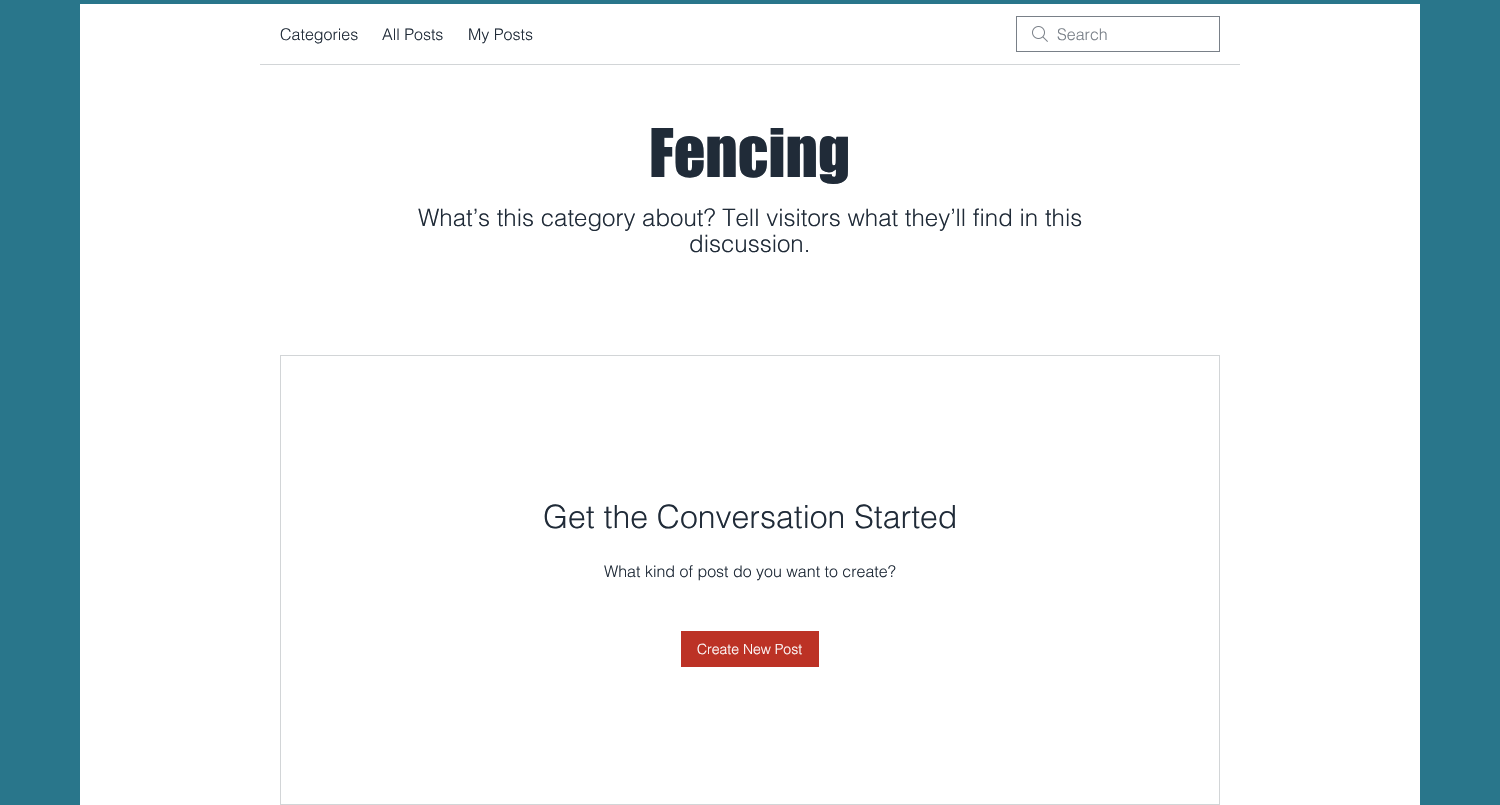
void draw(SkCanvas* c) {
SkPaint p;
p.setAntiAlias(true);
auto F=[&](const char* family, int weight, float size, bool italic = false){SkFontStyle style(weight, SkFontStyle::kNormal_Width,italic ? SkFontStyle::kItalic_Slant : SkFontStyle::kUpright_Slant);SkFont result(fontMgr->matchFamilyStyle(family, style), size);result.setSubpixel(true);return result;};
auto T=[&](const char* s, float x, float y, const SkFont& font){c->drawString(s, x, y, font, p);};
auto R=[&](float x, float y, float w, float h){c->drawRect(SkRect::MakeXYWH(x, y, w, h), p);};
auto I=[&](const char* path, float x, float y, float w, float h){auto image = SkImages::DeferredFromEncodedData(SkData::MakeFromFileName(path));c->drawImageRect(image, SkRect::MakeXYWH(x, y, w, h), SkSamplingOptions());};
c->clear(0xff29768b);
p.setColor(0xffffffff);
R(80,4,1340,801);
p.setColor(0xffd2d5d7);
R(260,64,980,1);
auto f1 = F("helvetica",300,16);
p.setColor(0xff202b38);
T("Categories",280,40,f1);
T("All Posts",382,40,f1);
T("My Posts",468,40,f1);
I("1.png",1032,26,16,16);
p.setStroke(true);
p.setStrokeWidth(1);
p.setColor(0xff798088);
c->drawRect(SkRect::MakeXYWH(1016.5,16.5,203,35),p);
p.setStroke(false);
T("Search",1057,40,f1);
auto f2 = F("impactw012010",400,62);
p.setColor(0xff202b38);
T("Fencing",649,177,f2);
auto f3 = F("helvetica",300,24);
T("What’s this category about? Tell visitors what they’ll find in this",418,226,f3);
T("discussion.",689,252,f3);
p.setStroke(true);
p.setColor(0xffd2d5d7);
c->drawRect(SkRect::MakeXYWH(280.5,355.5,939,449),p);
auto f4 = F("helvetica",300,32);
p.setStroke(false);
p.setColor(0xff202b38);
T("Get the Conversation Started",543,528,f4);
T("What kind of post do you want to create?",604,577,f1);
p.setColor(0xffbc3225);
R(681,631,138,36);
auto f5 = F("helvetica",300,14);
p.setColor(0xffffffff);
T("Create New Post",697,654,f5);
}
